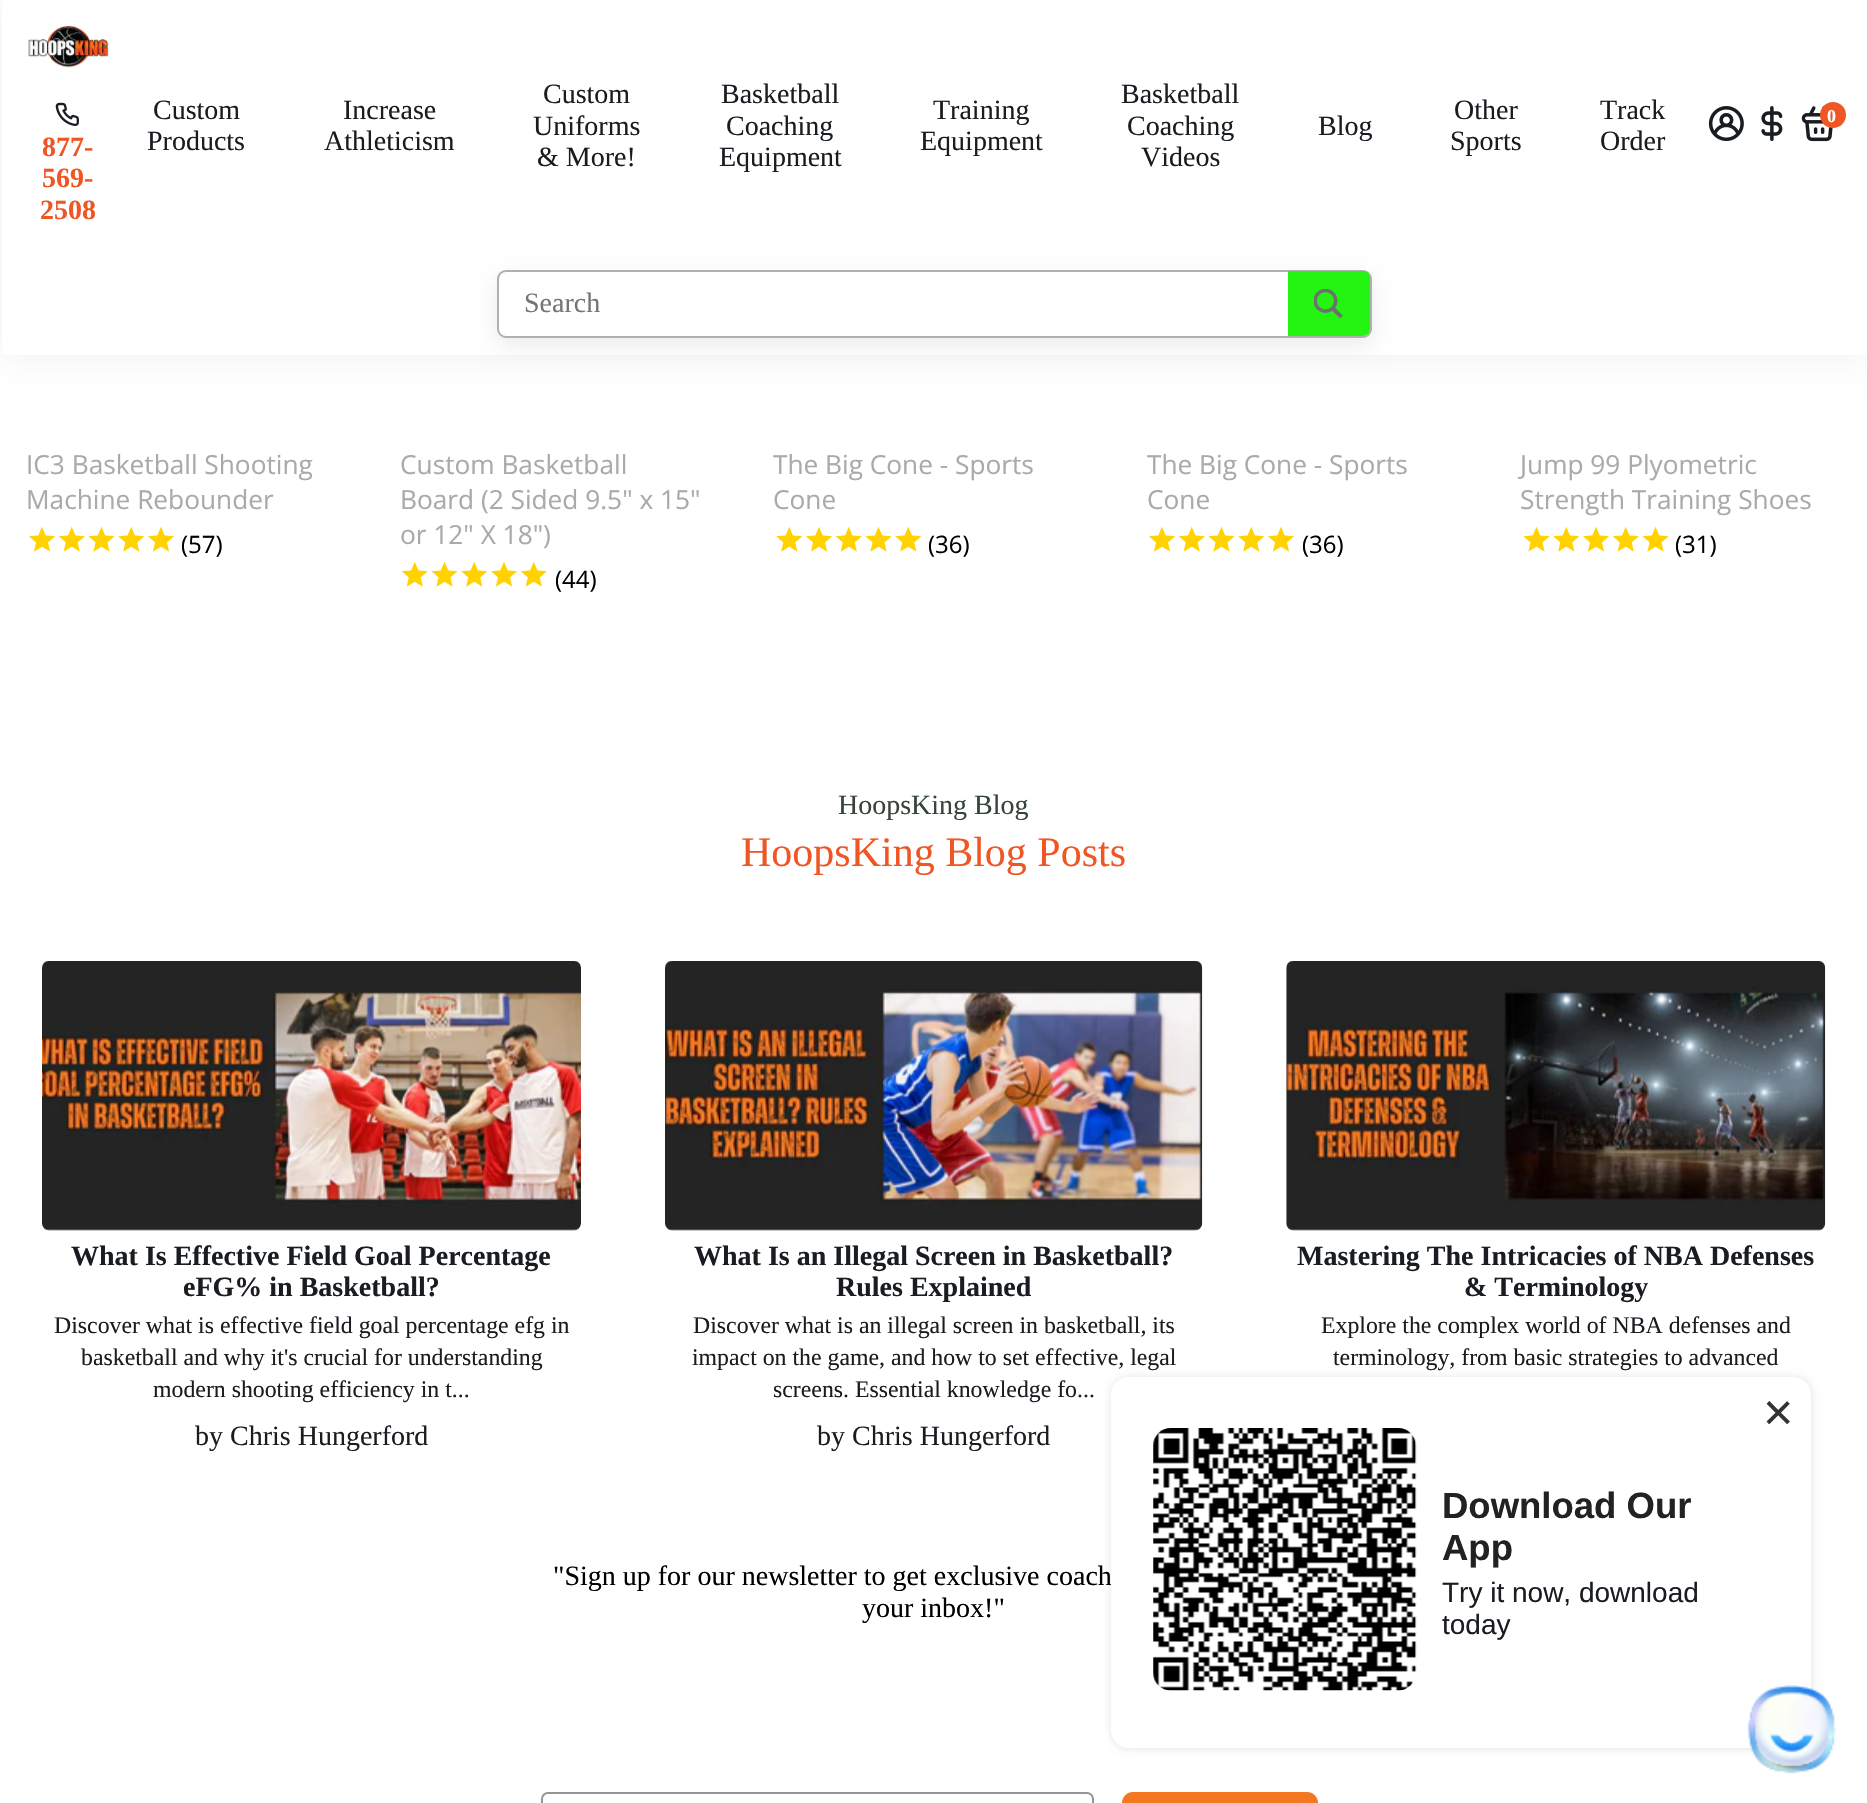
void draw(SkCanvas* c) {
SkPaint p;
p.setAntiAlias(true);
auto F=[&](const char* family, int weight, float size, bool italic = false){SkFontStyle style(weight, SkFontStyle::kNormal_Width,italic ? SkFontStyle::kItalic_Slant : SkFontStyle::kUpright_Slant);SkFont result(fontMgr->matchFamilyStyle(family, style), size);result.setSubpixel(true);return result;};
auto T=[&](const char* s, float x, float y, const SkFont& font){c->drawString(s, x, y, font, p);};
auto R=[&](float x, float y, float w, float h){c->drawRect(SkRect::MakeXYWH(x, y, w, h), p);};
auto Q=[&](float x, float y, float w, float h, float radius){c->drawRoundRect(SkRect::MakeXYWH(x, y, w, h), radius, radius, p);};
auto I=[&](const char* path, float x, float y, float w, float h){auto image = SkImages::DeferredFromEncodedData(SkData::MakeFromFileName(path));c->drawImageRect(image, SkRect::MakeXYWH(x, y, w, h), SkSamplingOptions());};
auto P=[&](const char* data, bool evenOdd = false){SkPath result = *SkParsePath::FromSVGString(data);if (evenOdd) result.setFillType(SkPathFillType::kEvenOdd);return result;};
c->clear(0xffffffff);
p.setColor(0x0f000000);
p.setMaskFilter(SkMaskFilter::MakeBlur(kNormal_SkBlurStyle, 17.5));
c->drawRect(SkRect::MakeXYWH(2,0,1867,355),p);
p.setMaskFilter(nullptr);
p.setColor(0xffffffff);
R(2,0,1865,355);
auto f1 = F("Liberation Serif",400,28);
p.setColor(0xff191d21);
T("Custom",153,119,f1);
T("Products",147,150,f1);
T("Increase",343,119,f1);
T("Athleticism",324,150,f1);
T("Custom",543,103,f1);
T("Uniforms",533,135,f1);
T("& More!",537,166,f1);
T("Basketball",721,103,f1);
T("Coaching",726,135,f1);
T("Equipment",719,166,f1);
T("Training",933,119,f1);
T("Equipment",920,150,f1);
T("Basketball",1121,103,f1);
T("Coaching",1127,135,f1);
T("Videos",1141,166,f1);
T("Blog",1318,135,f1);
T("Other",1454,119,f1);
T("Sports",1450,150,f1);
T("Track",1600,119,f1);
T("Order",1600,150,f1);
I("1.png",1708,106,36,35);
I("2.png",1761,106,22,35);
I("3.png",1801,105,32,37);
p.setColor(0xfff05623);
c->drawCircle(1833,115,13,p);
auto f2 = F("Liberation Serif",700,18);
p.setColor(0xffffffff);
T("0",1827,122,f2);
I("4.png",28,26,81,42);
I("5.png",55,102,24,24);
auto f3 = F("Liberation Serif",700,28);
p.setColor(0xfff05623);
T("877-",42,156,f3);
T("569-",42,187,f3);
T("2508",40,219,f3);
p.setColor(0x14000000);
p.setMaskFilter(SkMaskFilter::MakeBlur(kNormal_SkBlurStyle, 10.5));
c->drawRoundRect(SkRect::MakeXYWH(497,277,875,68),9,9,p);
p.setMaskFilter(nullptr);
p.setColor(0xffffffff);
c->drawRoundRect(SkRect::MakeXYWH(498,271,873,66),8,8,p);
p.setStroke(true);
p.setStrokeWidth(2);
p.setColor(0xffb0b0b0);
c->drawRoundRect(SkRect::MakeXYWH(498,271,873,66),8,8,p);
p.setStroke(false);
p.setColor(0xff757575);
T("Search",524,312,f1);
p.setColor(0xff23f412);
c->drawPath(P("M1288 271h75c4 0 7 3 7 7v51c0 4-3 7-7 7h-75z"),p);
I("6.png",1314,289,29,30);
auto f4 = F("Open Sans",400,26.25);
p.setColor(0xffaaaaaa);
T("IC3 Basketball Shooting",26,474,f4);
T("Machine Rebounder",26,509,f4);
I("7.png",29,527,26,25);
I("8.png",58,526,27,26);
I("9.png",88,526,27,26);
I("10.png",118,526,27,26);
I("7.png",148,527,26,25);
auto f5 = F("Open Sans",400,24);
p.setColor(0xff000000);
T("(57)",181,553,f5);
p.setColor(0xffaaaaaa);
T("Custom Basketball",400,474,f4);
T("Board (2 Sided 9.5\" x 15\"",400,509,f4);
T("or 12\" X 18\")",400,544,f4);
I("8.png",401,561,27,26);
I("9.png",431,561,27,26);
I("10.png",461,561,27,26);
I("7.png",491,562,26,25);
I("8.png",520,561,27,26);
p.setColor(0xff000000);
T("(44)",555,588,f5);
p.setColor(0xffaaaaaa);
T("The Big Cone - Sports",773,474,f4);
T("Cone",773,509,f4);
I("10.png",776,526,27,26);
I("7.png",806,527,26,25);
I("8.png",835,526,27,26);
I("9.png",865,526,27,26);
I("10.png",895,526,27,26);
p.setColor(0xff000000);
T("(36)",928,553,f5);
p.setColor(0xffaaaaaa);
T("The Big Cone - Sports",1147,474,f4);
T("Cone",1147,509,f4);
I("7.png",1149,527,26,25);
I("8.png",1178,526,27,26);
I("9.png",1208,526,27,26);
I("10.png",1238,526,27,26);
I("7.png",1268,527,26,25);
p.setColor(0xff000000);
T("(36)",1302,553,f5);
p.setColor(0xffaaaaaa);
T("Jump 99 Plyometric",1520,474,f4);
T("Strength Training Shoes",1520,509,f4);
I("9.png",1523,526,27,26);
I("10.png",1553,526,27,26);
I("7.png",1583,527,26,25);
I("8.png",1612,526,27,26);
I("9.png",1642,526,27,26);
p.setColor(0xff000000);
T("(31)",1675,553,f5);
p.setColor(0xff364539);
T("HoopsKing Blog",838,814,f1);
auto f6 = F("Liberation Serif",400,42);
p.setColor(0xfff05623);
T("HoopsKing Blog Posts",741,866,f6);
I("11.png",42,961,539,270);
p.setColor(0xff191d21);
T("What Is Effective Field Goal Percentage",71,1265,f3);
T("eFG% in Basketball?",183,1296,f3);
auto f7 = F("Liberation Serif",400,23.8);
T("Discover what is effective field goal percentage efg in",54,1333,f7);
T("basketball and why it's crucial for understanding",81,1365,f7);
T("modern shooting efficiency in t...",153,1397,f7);
T("by Chris Hungerford",195,1445,f1);
I("12.png",665,961,538,270);
T("What Is an Illegal Screen in Basketball?",694,1265,f3);
T("Rules Explained",836,1296,f3);
T("Discover what is an illegal screen in basketball, its",693,1333,f7);
T("impact on the game, and how to set effective, legal",692,1365,f7);
T("screens. Essential knowledge fo...",773,1397,f7);
T("by Chris Hungerford",817,1445,f1);
I("13.png",1286,961,540,270);
T("Mastering The Intricacies of NBA Defenses",1297,1265,f3);
T("& Terminology",1464,1296,f3);
T("Explore the complex world of NBA defenses and",1321,1333,f7);
T("terminology, from basic strategies to advanced",1333,1365,f7);
p.setColor(0xff000000);
T("\"Sign up for our newsletter to get exclusive coach",553,1585,f1);
T("your inbox!\"",862,1617,f1);
p.setStroke(true);
p.setColor(0xff949596);
c->drawRoundRect(SkRect::MakeXYWH(542,1793,551,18),6,6,p);
p.setStroke(false);
p.setColor(0xfff47721);
Q(1122,1792,196,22,11);
p.setColor(0x14000000);
p.setMaskFilter(SkMaskFilter::MakeBlur(kNormal_SkBlurStyle, 3.5));
c->drawRoundRect(SkRect::MakeXYWH(1110,1376,703,374),19,19,p);
p.setMaskFilter(nullptr);
p.setColor(0xffffffff);
Q(1111,1377,700,371,18);
auto f8 = F("Liberation Sans",400,52);
p.setColor(0xff333333);
T("×",1763,1430,f8);
I("14.png",1153,1428,264,263);
auto f9 = F("Liberation Sans",700,36.5);
p.setColor(0xff222222);
T("Download Our",1442,1518,f9);
T("App",1442,1560,f9);
auto f10 = F("Liberation Sans",400,28);
p.setColor(0xff191d21);
T("Try it now, download",1442,1602,f10);
T("today",1442,1634,f10);
I("15.png",1747,1685,89,89);
}
